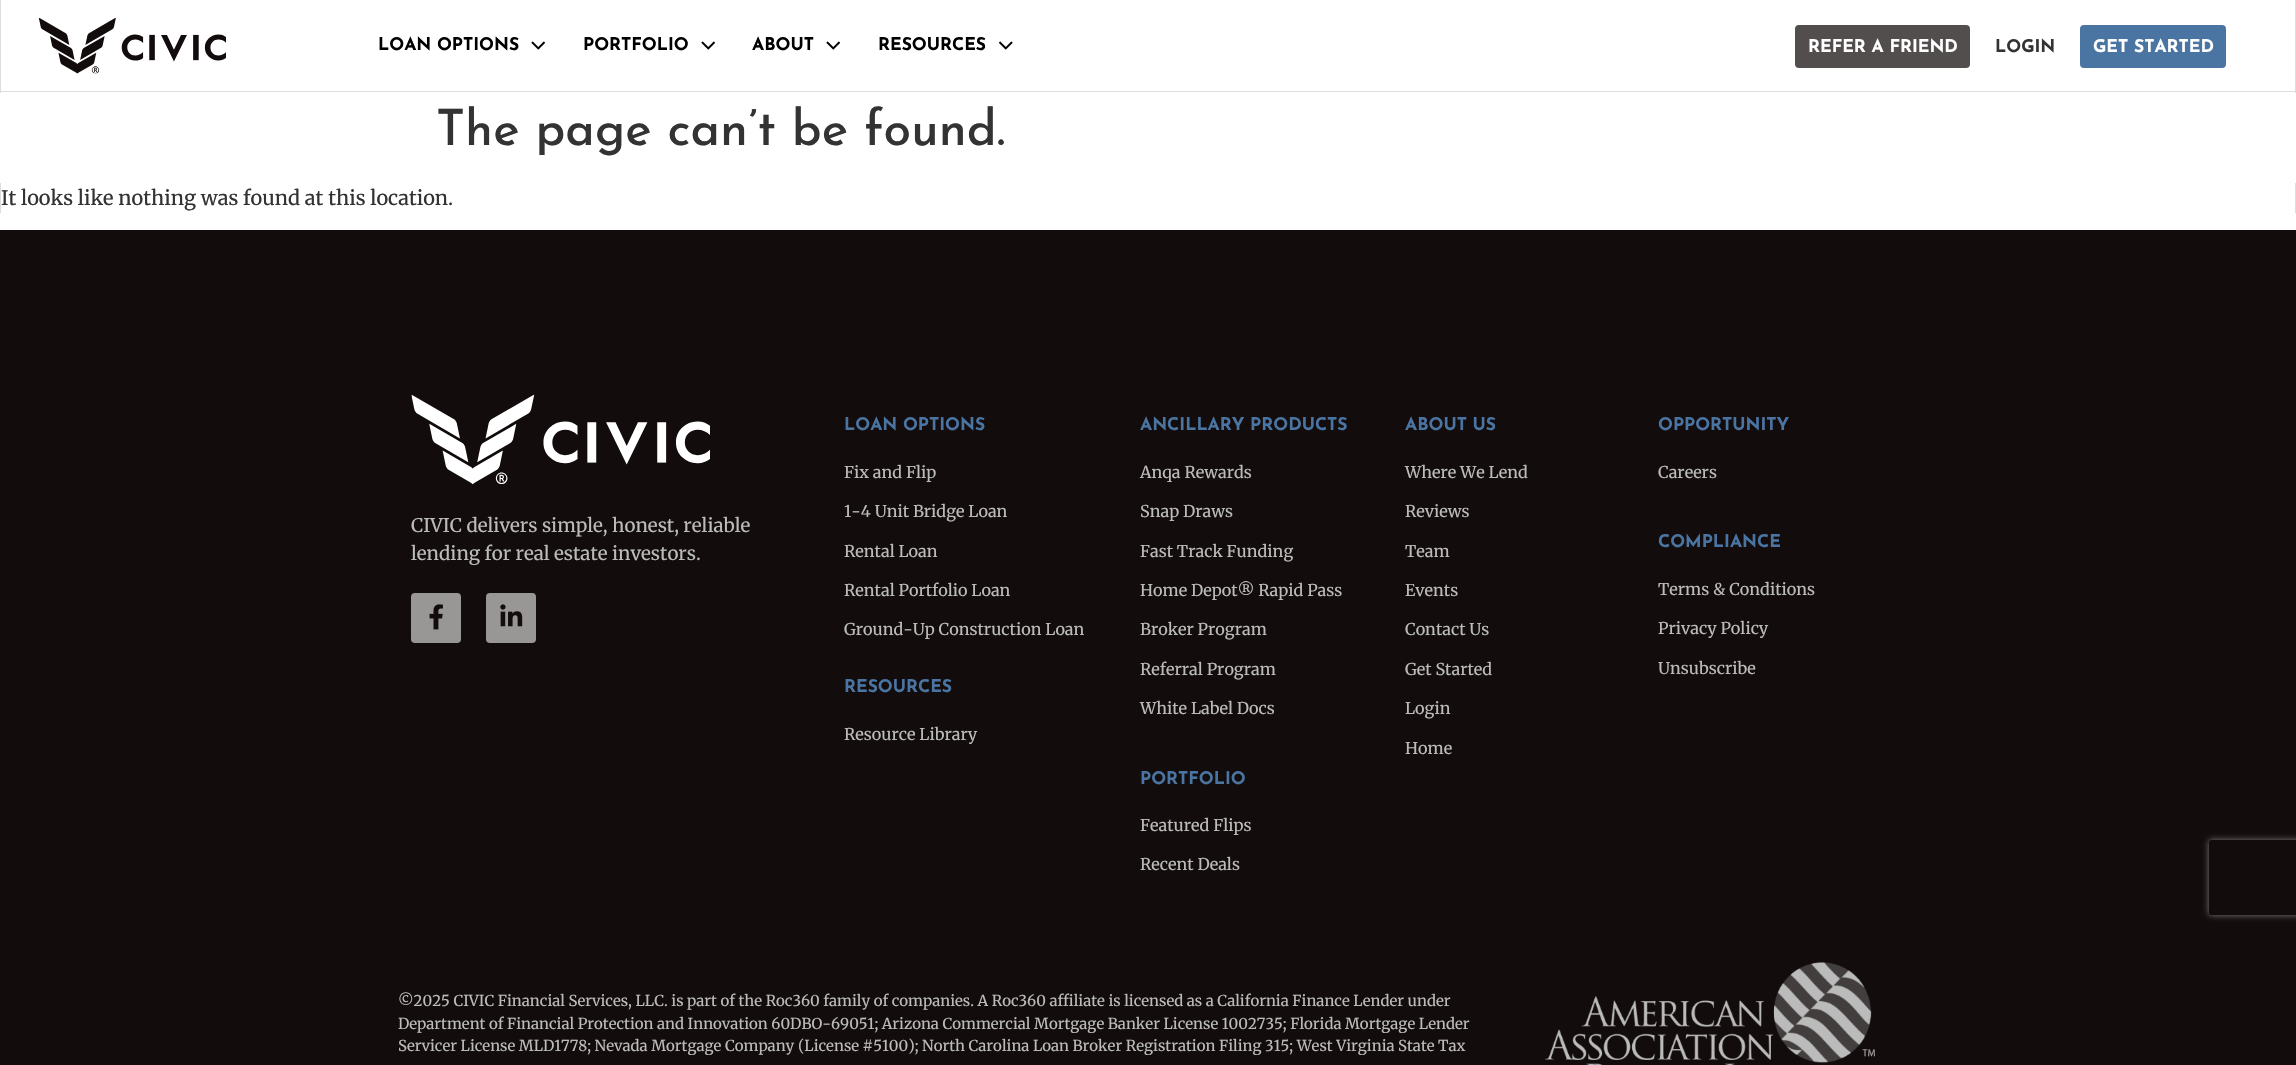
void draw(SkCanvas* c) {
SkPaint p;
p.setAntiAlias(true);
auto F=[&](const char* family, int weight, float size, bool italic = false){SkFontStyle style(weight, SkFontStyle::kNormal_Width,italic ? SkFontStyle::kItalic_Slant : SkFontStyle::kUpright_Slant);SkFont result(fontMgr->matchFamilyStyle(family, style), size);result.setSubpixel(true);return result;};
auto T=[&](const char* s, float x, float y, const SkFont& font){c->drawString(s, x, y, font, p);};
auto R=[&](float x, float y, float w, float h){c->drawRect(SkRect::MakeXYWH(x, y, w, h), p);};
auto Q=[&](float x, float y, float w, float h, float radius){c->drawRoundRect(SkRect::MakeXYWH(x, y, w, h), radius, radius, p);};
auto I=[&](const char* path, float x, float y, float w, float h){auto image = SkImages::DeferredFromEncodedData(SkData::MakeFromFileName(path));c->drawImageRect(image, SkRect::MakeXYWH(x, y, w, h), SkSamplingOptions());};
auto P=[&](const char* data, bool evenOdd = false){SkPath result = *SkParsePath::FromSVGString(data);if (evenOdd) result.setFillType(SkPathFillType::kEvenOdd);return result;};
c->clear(0xffffffff);
p.setColor(0xffdddddd);
R(2295,0,1,93);
R(0,91,2296,1);
R(0,0,1,93);
I("1.png",39,18,187,56);
auto f1 = F("Josefin Sans",700,17.5);
p.setColor(0xff000000);
T("LOAN OPTIONS",378,50,f1);
I("2.png",531,41,14,9);
T("PORTFOLIO",583,50,f1);
I("2.png",701,41,14,9);
T("ABOUT",752,50,f1);
I("3.png",826,41,15,9);
T("RESOURCES",878,50,f1);
I("4.png",999,41,14,9);
p.setColor(0xff534e4e);
Q(1795,25,175,43,4);
p.setColor(0xffffffff);
T("REFER A FRIEND",1808,52,f1);
p.setColor(0xff333333);
T("LOGIN",1995,52,f1);
p.setColor(0xff4a74a2);
Q(2080,25,146,43,4);
p.setColor(0xffffffff);
T("GET STARTED",2093,52,f1);
auto f2 = F("Josefin Sans",500,50);
p.setColor(0xff333333);
T("The page can’t be found.",436,145,f2);
p.setColor(0xffdddddd);
R(2295,183,1,30);
R(0,183,1,30);
auto f3 = F("Merriweather",400,20);
p.setColor(0xff333333);
T("It looks like nothing was found at this location.",1,205,f3);
p.setColor(0xff130c0c);
R(0,230,2296,835);
I("5.png",411,394,299,91);
auto f4 = F("Merriweather",400,18.75);
p.setColor(0xffbbbbbb);
T("CIVIC delivers simple, honest, reliable",411,532,f4);
T("lending for real estate investors.",411,560,f4);
p.setColor(0xff999696);
Q(411,593,50,50,4);
I("6.png",429,604,14,26);
Q(486,593,50,50,4);
I("7.png",500,604,23,23);
p.setColor(0xff4a74a2);
T("LOAN OPTIONS",844,430,f1);
auto f5 = F("Merriweather",400,16.25);
p.setColor(0xffbbbbbb);
T("Fix and Flip",844,478,f5);
T("1-4 Unit Bridge Loan",844,517,f5);
T("Rental Loan",844,557,f5);
T("Rental Portfolio Loan",844,596,f5);
T("Ground-Up Construction Loan",844,635,f5);
p.setColor(0xff4a74a2);
T("RESOURCES",844,692,f1);
p.setColor(0xffbbbbbb);
T("Resource Library",844,740,f5);
p.setColor(0xff4a74a2);
T("ANCILLARY PRODUCTS",1140,430,f1);
p.setColor(0xffbbbbbb);
T("Anqa Rewards",1140,478,f5);
T("Snap Draws",1140,517,f5);
T("Fast Track Funding",1140,557,f5);
T("Home Depot® Rapid Pass",1140,596,f5);
T("Broker Program",1140,635,f5);
T("Referral Program",1140,675,f5);
T("White Label Docs",1140,714,f5);
p.setColor(0xff4a74a2);
T("PORTFOLIO",1140,784,f1);
p.setColor(0xffbbbbbb);
T("Featured Flips",1140,831,f5);
T("Recent Deals",1140,870,f5);
p.setColor(0xff4a74a2);
T("ABOUT US",1405,430,f1);
p.setColor(0xffbbbbbb);
T("Where We Lend",1405,478,f5);
T("Reviews",1405,517,f5);
T("Team",1405,557,f5);
T("Events",1405,596,f5);
T("Contact Us",1405,635,f5);
T("Get Started",1405,675,f5);
T("Login",1405,714,f5);
T("Home",1405,754,f5);
p.setColor(0xff4a74a2);
T("OPPORTUNITY",1658,430,f1);
p.setColor(0xffbbbbbb);
T("Careers",1658,478,f5);
p.setColor(0xff4a74a2);
T("COMPLIANCE",1658,547,f1);
p.setColor(0xffbbbbbb);
T("Terms & Conditions",1658,595,f5);
T("Privacy Policy",1658,634,f5);
T("Unsubscribe",1658,674,f5);
auto f6 = F("Merriweather",400,15);
T("©2025 CIVIC Financial Services, LLC. is part of the Roc360 family of companies. A Roc360 affiliate is licensed as a California Finance Lender under",398,1006,f6);
T("Department of Financial Protection and Innovation 60DBO-69051; Arizona Commercial Mortgage Banker License 1002735; Florida Mortgage Lender",398,1029,f6);
T("Servicer License MLD1778; Nevada Mortgage Company (License #5100); North Carolina Loan Broker Registration Filing 315; West Virginia State Tax",398,1051,f6);
I("8.png",1545,962,330,103);
c->save();
c->clipPath(P("M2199 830h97v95h-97zm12.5 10h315c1.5 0 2.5 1 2.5 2.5v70c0 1.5-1 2.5-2.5 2.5h-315c-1.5 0-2.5-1-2.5-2.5v-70c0-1.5 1-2.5 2.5-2.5z",true),true);
p.setColor(0xff808080);
p.setMaskFilter(SkMaskFilter::MakeBlur(kNormal_SkBlurStyle, 3));
c->drawRoundRect(SkRect::MakeXYWH(2209,840,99,75),2.5,2.5,p);
p.setMaskFilter(nullptr);
c->restore();
}
